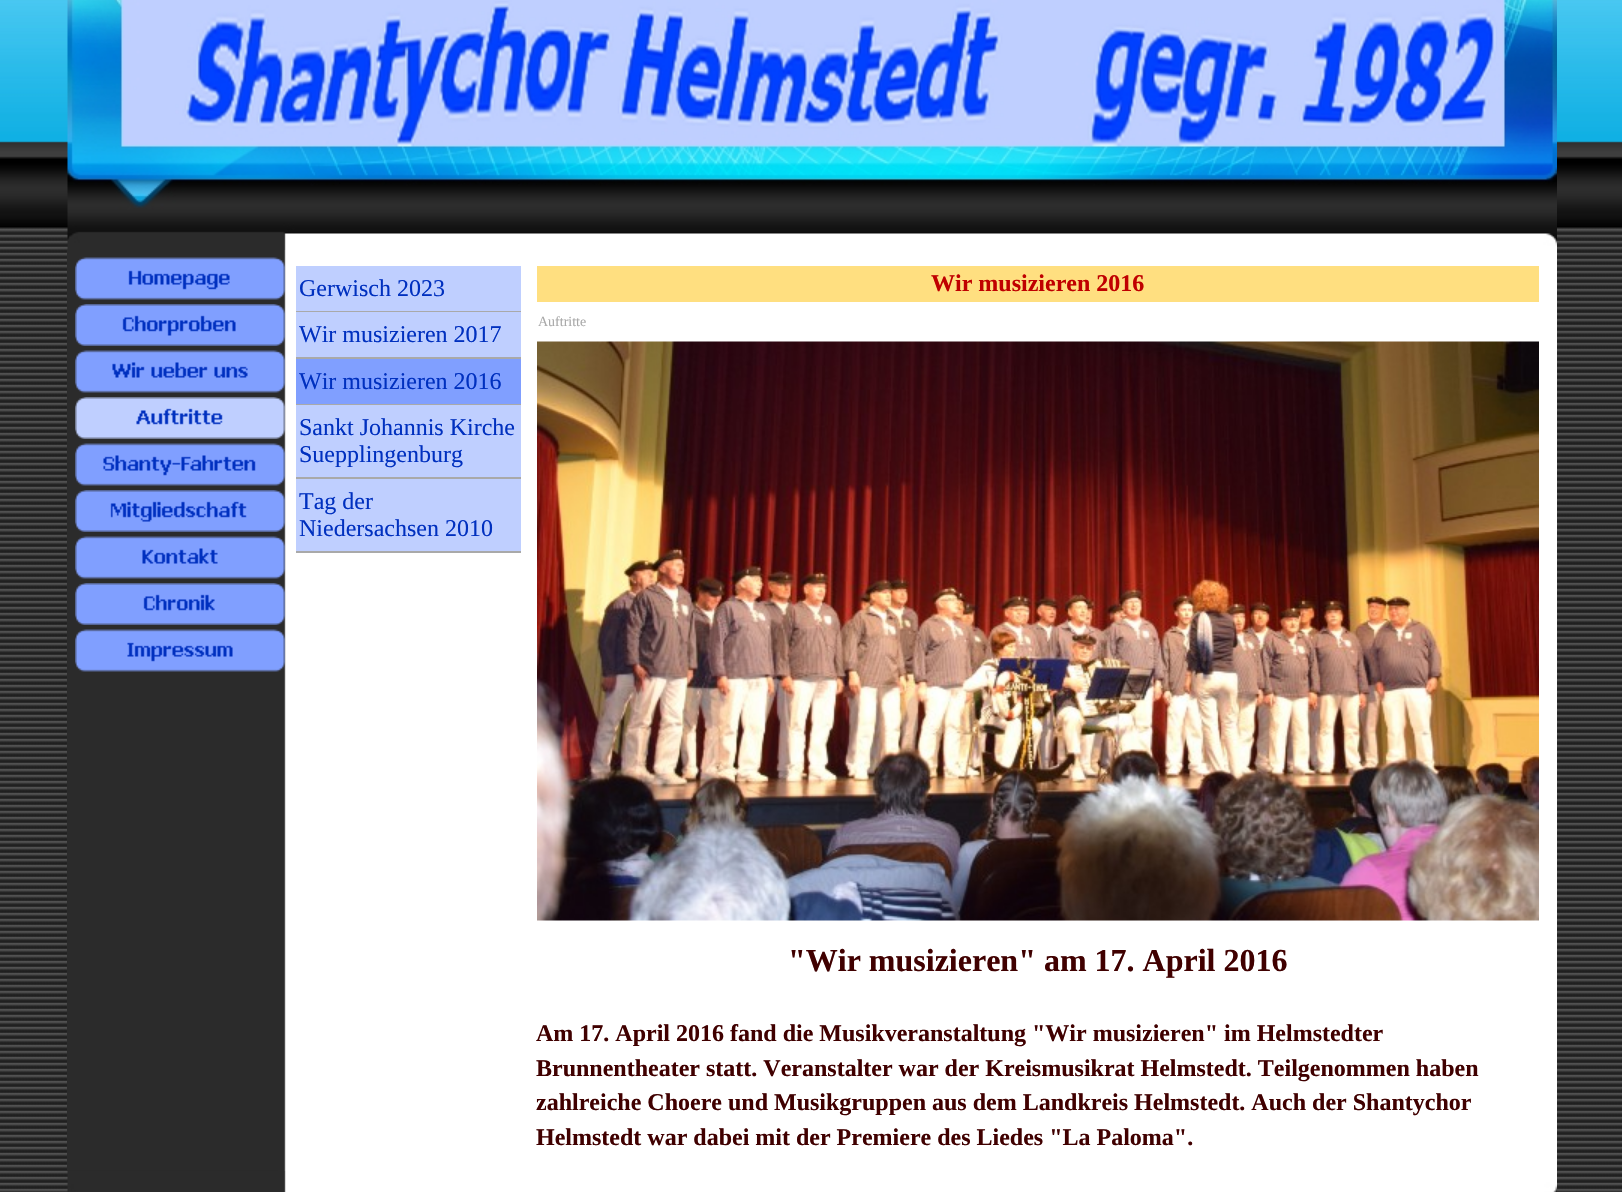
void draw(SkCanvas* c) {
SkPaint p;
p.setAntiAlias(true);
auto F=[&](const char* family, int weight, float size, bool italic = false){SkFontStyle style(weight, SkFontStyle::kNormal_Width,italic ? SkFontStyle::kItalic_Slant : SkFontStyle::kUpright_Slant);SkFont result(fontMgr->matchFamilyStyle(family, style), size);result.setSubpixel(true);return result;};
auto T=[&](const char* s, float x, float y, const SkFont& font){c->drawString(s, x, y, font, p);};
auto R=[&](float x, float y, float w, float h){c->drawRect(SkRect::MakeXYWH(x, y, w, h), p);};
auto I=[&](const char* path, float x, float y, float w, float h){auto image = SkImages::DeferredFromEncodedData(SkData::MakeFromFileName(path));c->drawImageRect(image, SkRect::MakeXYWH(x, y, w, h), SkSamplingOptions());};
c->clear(0xffffffff);
I("1.png",0,0,1622,1192);
I("2.png",67,0,1490,250);
p.setColor(0xff2b2b2b);
R(67,250,211,920);
I("3.png",278,250,1279,921);
I("4.png",75,257,210,43);
I("5.png",75,304,210,42);
I("6.png",75,350,210,43);
I("7.png",75,397,210,42);
I("8.png",75,443,210,43);
I("9.png",75,490,210,42);
I("10.png",75,536,210,43);
I("11.png",75,583,210,42);
I("12.png",75,629,210,43);
p.setColor(0xffbfcfff);
R(296,266,225,45);
p.setColor(0xffa9a9a9);
R(296,311,225,1);
auto f1 = F("Liberation Serif",400,24);
p.setColor(0xff0030bf);
T("Gerwisch 2023",299,296,f1);
p.setColor(0xffbfcfff);
R(296,312,225,45);
p.setColor(0xffa9a9a9);
R(296,357,225,2);
p.setColor(0xff0030bf);
T("Wir musizieren 2017",299,342,f1);
p.setColor(0xff809fff);
R(296,359,225,45);
p.setColor(0xffa9a9a9);
R(296,404,225,1);
p.setColor(0xff0030bf);
T("Wir musizieren 2016",299,389,f1);
p.setColor(0xffbfcfff);
R(296,405,225,72);
p.setColor(0xffa9a9a9);
R(296,477,225,2);
p.setColor(0xff0030bf);
T("Sankt Johannis Kirche",299,435,f1);
T("Suepplingenburg",299,462,f1);
p.setColor(0xffbfcfff);
R(296,479,225,72);
p.setColor(0xffa9a9a9);
R(296,551,225,2);
p.setColor(0xff0030bf);
T("Tag der",299,509,f1);
T("Niedersachsen 2010",299,536,f1);
auto f2 = F("Liberation Serif",400,14);
p.setColor(0xffa9a9a9);
T("Auftritte",538,326,f2);
p.setColor(0xffffdf80);
R(537,266,1002,36);
auto f3 = F("Liberation Serif",700,24);
p.setColor(0xffc00000);
T("Wir musizieren 2016",931,291,f3);
I("13.png",537,341,1002,580);
auto f4 = F("Liberation Serif",700,32);
p.setColor(0xff400000);
T("\"Wir musizieren\" am 17. April 2016",788,971,f4);
T("Am 17. April 2016 fand die Musikveranstaltung \"Wir musizieren\" im Helmstedter",536,1041,f3);
T("Brunnentheater statt. Veranstalter war der Kreismusikrat Helmstedt. Teilgenommen haben",536,1076,f3);
T("zahlreiche Choere und Musikgruppen aus dem Landkreis Helmstedt. Auch der Shantychor",536,1110,f3);
T("Helmstedt war dabei mit der Premiere des Liedes \"La Paloma\".",536,1145,f3);
I("14.png",67,1171,1490,21);
}
